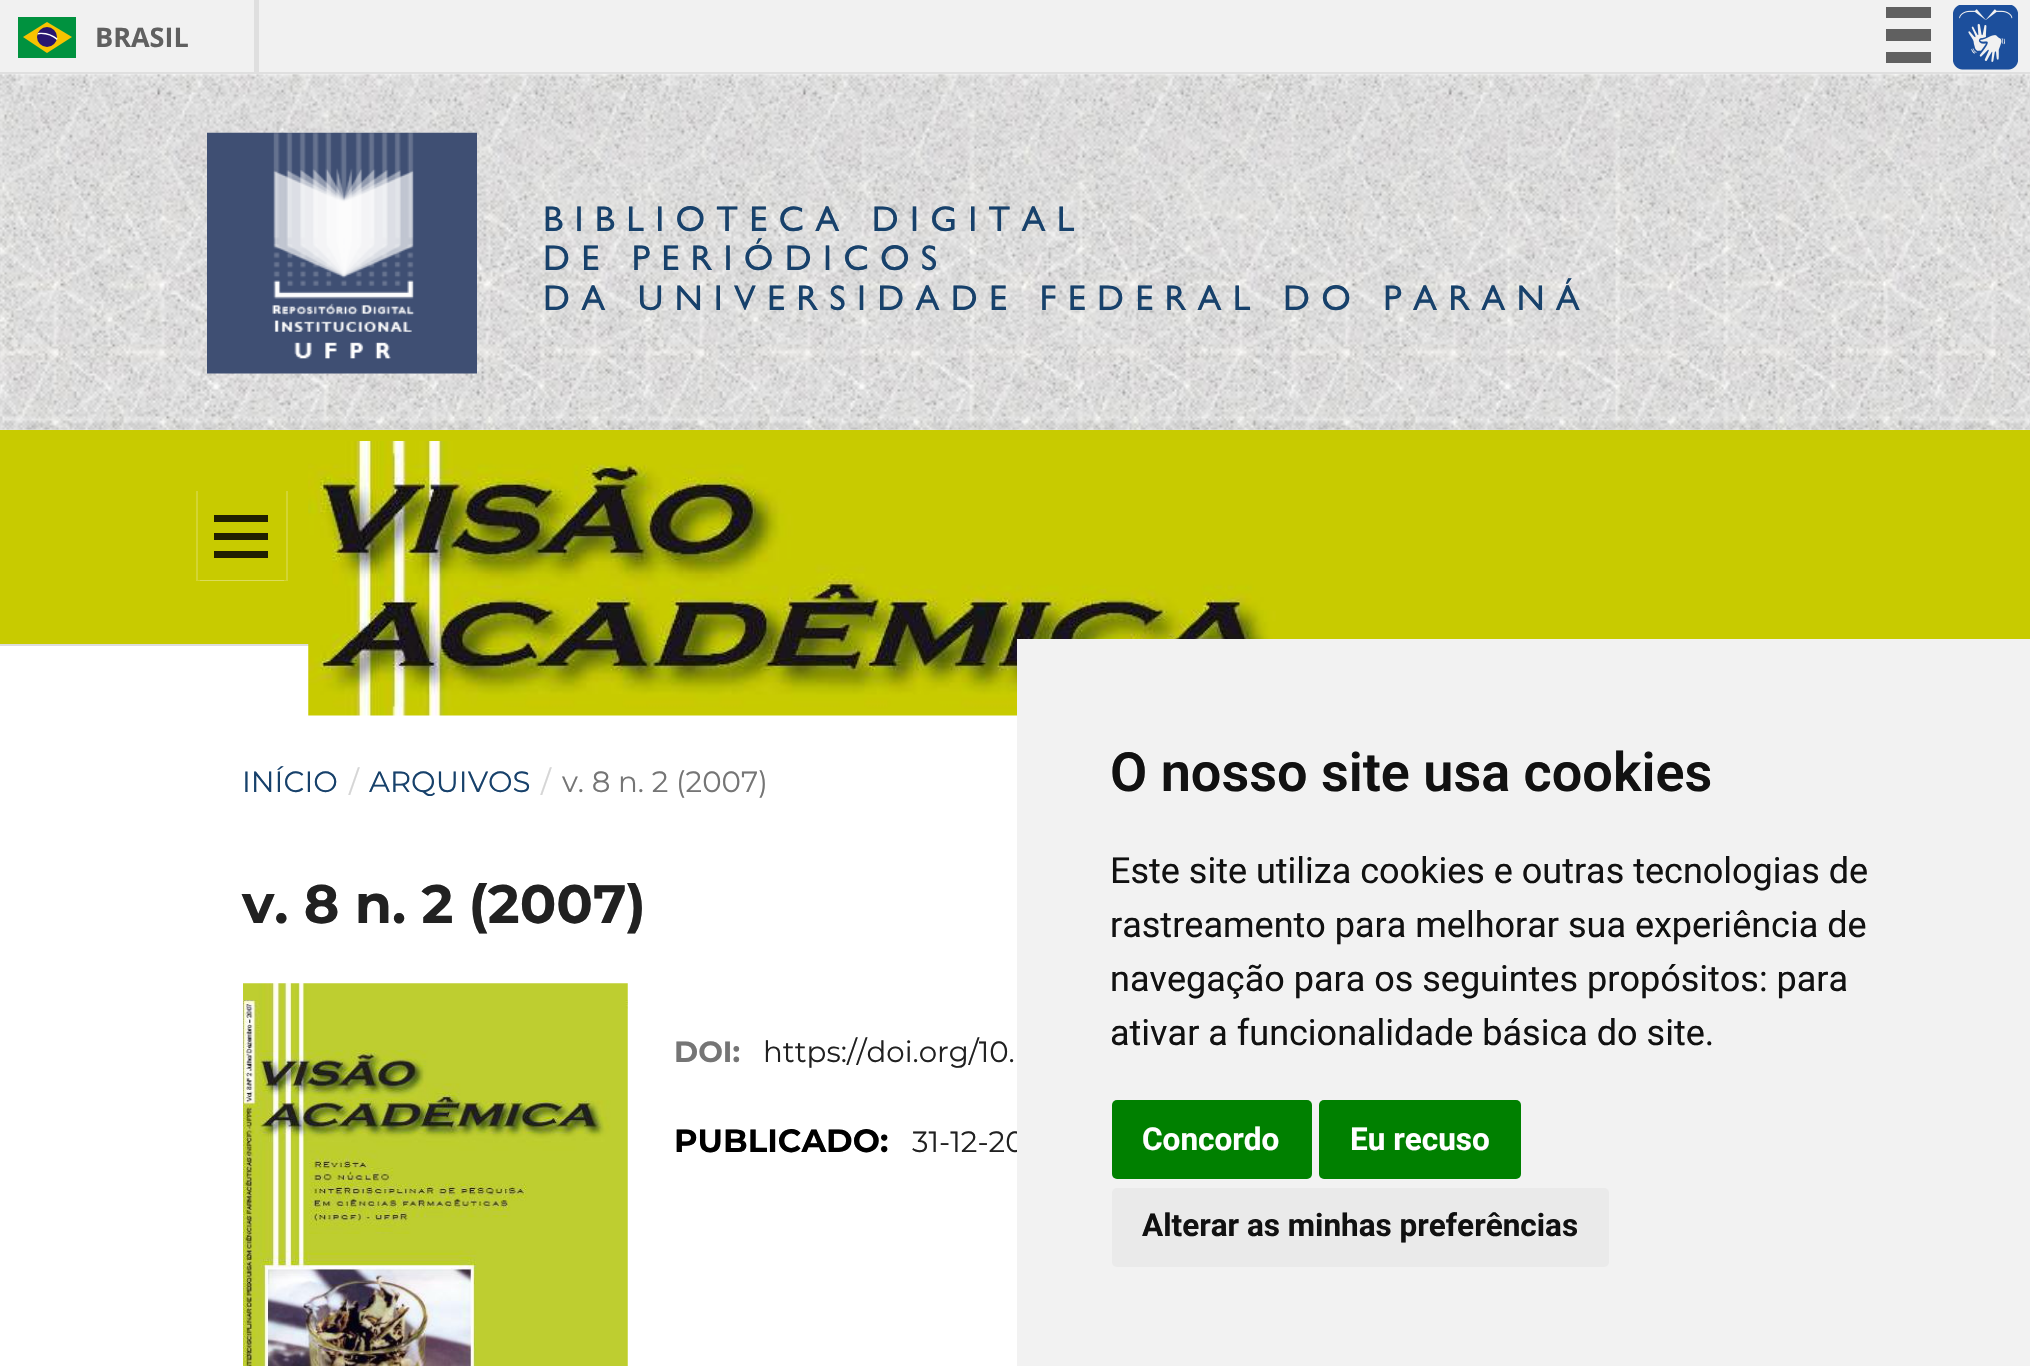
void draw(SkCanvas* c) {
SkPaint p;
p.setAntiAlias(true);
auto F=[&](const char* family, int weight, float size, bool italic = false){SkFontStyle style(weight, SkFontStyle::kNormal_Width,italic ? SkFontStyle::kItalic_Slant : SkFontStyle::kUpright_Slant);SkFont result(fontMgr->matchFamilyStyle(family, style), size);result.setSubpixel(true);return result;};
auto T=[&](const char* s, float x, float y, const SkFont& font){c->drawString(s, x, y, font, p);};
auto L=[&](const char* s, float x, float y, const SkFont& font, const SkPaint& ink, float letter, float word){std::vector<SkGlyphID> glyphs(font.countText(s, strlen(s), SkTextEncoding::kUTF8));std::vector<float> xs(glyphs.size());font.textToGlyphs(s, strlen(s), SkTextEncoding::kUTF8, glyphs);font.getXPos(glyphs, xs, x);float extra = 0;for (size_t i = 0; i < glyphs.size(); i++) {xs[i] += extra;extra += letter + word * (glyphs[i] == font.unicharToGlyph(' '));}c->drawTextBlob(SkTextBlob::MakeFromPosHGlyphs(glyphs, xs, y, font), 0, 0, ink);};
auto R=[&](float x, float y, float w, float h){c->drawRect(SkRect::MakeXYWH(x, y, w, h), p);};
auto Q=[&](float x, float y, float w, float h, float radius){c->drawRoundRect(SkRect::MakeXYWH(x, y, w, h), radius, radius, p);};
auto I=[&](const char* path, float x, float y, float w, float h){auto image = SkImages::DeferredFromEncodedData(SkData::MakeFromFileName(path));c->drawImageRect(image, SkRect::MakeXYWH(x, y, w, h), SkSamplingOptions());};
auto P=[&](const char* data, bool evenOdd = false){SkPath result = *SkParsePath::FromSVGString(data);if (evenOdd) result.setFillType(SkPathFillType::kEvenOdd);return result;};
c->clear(0xffffffff);
p.setColor(0xfff1f1f1);
R(0,0,2030,72);
p.setColor(0xffdfdfdf);
R(0,72,2030,2);
R(254,0,5,72);
p.setColor(0xff00923f);
R(18,17,58,41);
p.setColor(0xfff8c300);
c->drawPath(P("M47 22l-24 15l24 16l25-16z"),p);
p.setColor(0xff28166f);
c->drawCircle(47,37,10,p);
p.setColor(0xffffffff);
c->drawPath(P("M41 34c6 0 11.5 2 16 6l.5-1.5c-5.5-4.5-12.5-6.5-19.5-5.5l-.5 1.5z"),p);
auto f1 = F("Open Sans",700,27);
p.setColor(0xff606060);
T("BRASIL",95,47,f1);
R(1886,7,45,11);
R(1886,29,45,12);
R(1886,52,45,11);
I("1.png",1953,5,65,65);
I("2.png",0,74,2030,356);
I("3.png",207,132,270,242);
auto f2 = F("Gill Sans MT",400,36);
p.setColor(0xff17416b);
L("BIBLIOTECA DIGITAL",543,231,f2,p,11.25,0);
L("DE PERIÓDICOS",543,270,f2,p,11.25,0);
L("DA UNIVERSIDADE FEDERAL DO PARANÁ",543,310,f2,p,11.25,0);
p.setColor(0x1a000000);
p.setMaskFilter(SkMaskFilter::MakeBlur(kNormal_SkBlurStyle, 11));
c->drawRect(SkRect::MakeXYWH(0,430,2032,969),p);
p.setMaskFilter(nullptr);
p.setColor(0xffffffff);
R(0,646,1017,720);
p.setColor(0xffc8cb00);
R(0,430,2030,214);
p.setColor(0xffdddddd);
R(0,644,309,2);
p.setColor(0xffd3d533);
c->drawPath(P("M196 491v90h88v-1h-86v-89z"),p);
p.setColor(0x33ffffff);
c->drawPath(P("M200 580v1h88v-90h-2v89z"),p);
p.setColor(0xff202000);
R(214,551,54,7);
R(214,515,54,7);
R(214,533,54,7);
I("4.png",308,441,968,275);
auto f3 = F("Montserrat",400,29.25);
p.setColor(0xff17416b);
T("INÍCIO",242,792,f3);
p.setColor(0xffd6d6d6);
T("/",349,792,f3);
p.setColor(0xff17416b);
T("ARQUIVOS",369,792,f3);
p.setColor(0xffd6d6d6);
T("/",541,792,f3);
p.setColor(0xff757575);
T("v. 8 n. 2 (2007)",562,792,f3);
auto f4 = F("Montserrat",700,54);
p.setColor(0xff212121);
T("v. 8 n. 2 (2007)",242,923,f4);
I("5.png",243,983,385,383);
auto f5 = F("Montserrat",700,29.25);
p.setColor(0xff757575);
T("DOI:",674,1062,f5);
p.setColor(0xff212121);
T("https://doi.org/10.",763,1062,f3);
auto f6 = F("Montserrat",700,32.25);
p.setColor(0xff000000);
T("PUBLICADO:",674,1152,f6);
p.setColor(0xff212121);
T("31-12-20",912,1152,f3);
p.setColor(0xfff2f2f2);
R(1017,639,1013,727);
auto f7 = F("Roboto",600,54);
p.setColor(0xff111111);
T("O nosso site usa cookies",1110,791,f7);
auto f8 = F("Roboto",400,36);
T("Este site utiliza cookies e outras tecnologias de",1110,883,f8);
T("rastreamento para melhorar sua experiência de",1110,937,f8);
T("navegação para os seguintes propósitos: para",1110,991,f8);
T("ativar a funcionalidade básica do site.",1110,1045,f8);
p.setColor(0xff008000);
Q(1112,1100,200,79,5);
auto f9 = F("Roboto",700,31.5);
p.setColor(0xffffffff);
T("Concordo",1142,1150,f9);
p.setColor(0xff008000);
Q(1319,1100,202,79,5);
p.setColor(0xffffffff);
T("Eu recuso",1350,1150,f9);
p.setColor(0xffeaeaea);
Q(1112,1188,497,79,5);
p.setColor(0xff111111);
T("Alterar as minhas preferências",1142,1236,f9);
}
